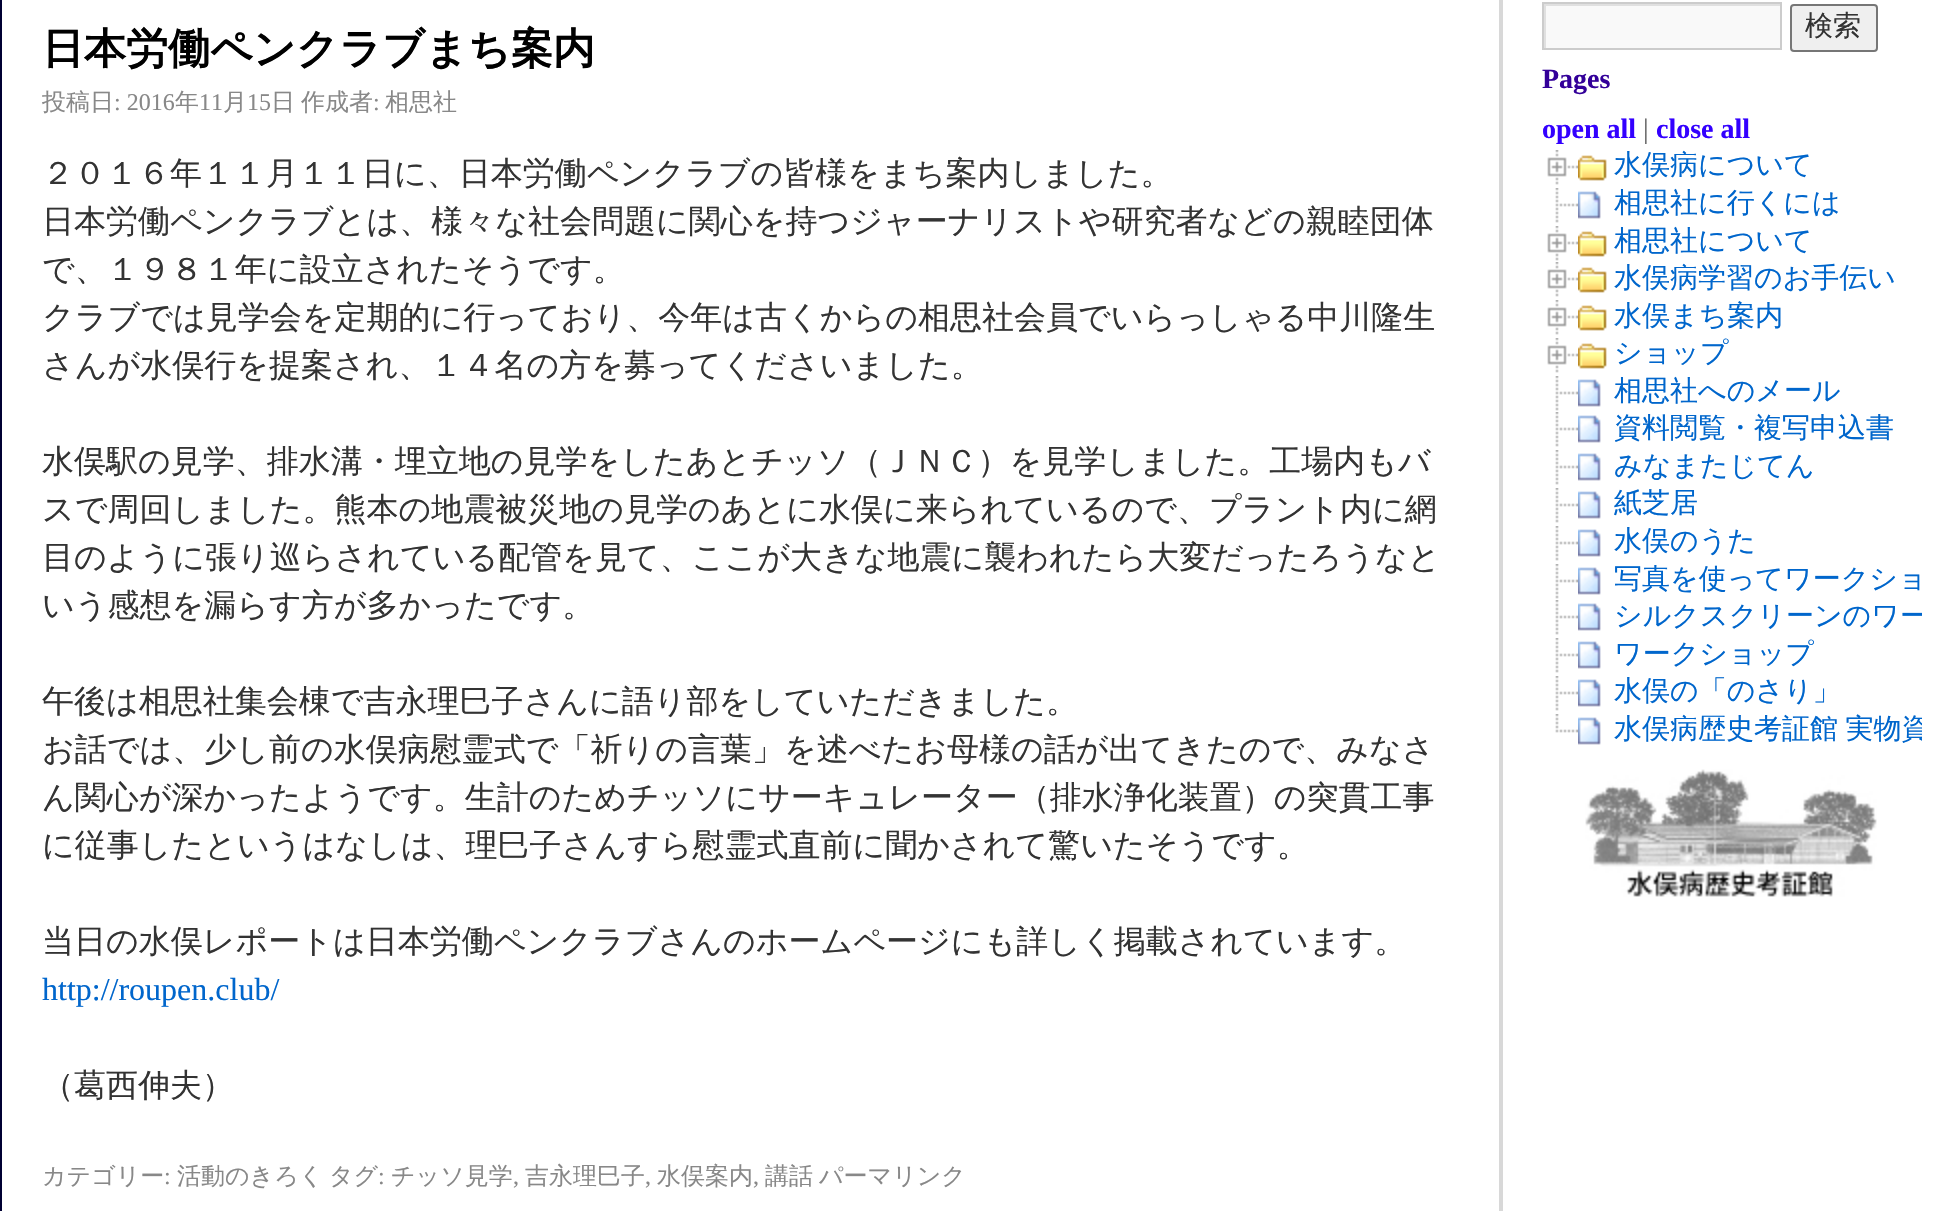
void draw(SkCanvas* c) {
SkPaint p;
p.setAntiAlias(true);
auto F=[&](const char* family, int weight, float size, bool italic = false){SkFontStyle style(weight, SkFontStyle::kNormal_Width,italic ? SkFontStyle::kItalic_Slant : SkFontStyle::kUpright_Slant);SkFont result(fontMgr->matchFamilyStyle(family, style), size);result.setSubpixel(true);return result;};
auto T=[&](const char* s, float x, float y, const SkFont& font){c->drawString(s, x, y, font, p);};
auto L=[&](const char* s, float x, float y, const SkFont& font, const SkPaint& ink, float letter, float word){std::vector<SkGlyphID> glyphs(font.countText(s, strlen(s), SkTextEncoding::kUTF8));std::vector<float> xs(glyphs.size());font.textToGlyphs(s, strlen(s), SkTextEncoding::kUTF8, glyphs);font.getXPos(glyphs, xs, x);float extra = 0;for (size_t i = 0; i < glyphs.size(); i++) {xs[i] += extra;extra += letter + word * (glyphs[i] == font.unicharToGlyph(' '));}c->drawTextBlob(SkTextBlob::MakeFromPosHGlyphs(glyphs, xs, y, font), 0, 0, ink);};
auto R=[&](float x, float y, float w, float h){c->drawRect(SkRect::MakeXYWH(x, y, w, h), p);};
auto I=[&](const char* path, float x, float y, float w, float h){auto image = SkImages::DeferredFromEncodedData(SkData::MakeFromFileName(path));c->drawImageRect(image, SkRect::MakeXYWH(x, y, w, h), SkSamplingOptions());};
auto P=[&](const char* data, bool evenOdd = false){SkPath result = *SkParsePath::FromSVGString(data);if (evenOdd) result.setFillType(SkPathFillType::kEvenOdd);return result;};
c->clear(0xffffffff);
p.setColor(0xff000033);
R(0,0,2,1211);
p.setColor(0xffd8d8d8);
R(1499,0,4,1211);
auto f1 = F("WenQuanYi Zen Hei",700,42);
p.setColor(0xff000000);
T("日本労働ペンクラブまち案内",42,63,f1);
auto f2 = F("WenQuanYi Zen Hei",500,24);
p.setColor(0xff888888);
T("投稿日",42,110,f2);
auto f3 = F("Liberation Serif",400,24);
T(": 2016",114,110,f3);
T("年",175,110,f2);
T("11",199,110,f3);
T("月",223,110,f2);
T("15",247,110,f3);
T("日",271,110,f2);
T("作成者",301,110,f2);
T(":",373,110,f3);
T("相思社",385,110,f2);
auto f4 = F("WenQuanYi Zen Hei",500,32);
p.setColor(0xff333333);
T("２０１６年１１月１１日に、日本労働ペンクラブの皆様をまち案内しました。",42,184,f4);
T("日本労働ペンクラブとは、様々な社会問題に関心を持つジャーナリストや研究者などの親睦団体",42,232,f4);
T("で、１９８１年に設立されたそうです。",42,280,f4);
T("クラブでは見学会を定期的に行っており、今年は古くからの相思社会員でいらっしゃる中川隆生",42,328,f4);
T("さんが水俣行を提案され、１４名の方を募ってくださいました。",42,376,f4);
T("水俣駅の見学、排水溝・埋立地の見学をしたあとチッソ（ＪＮＣ）を見学しました。工場内もバ",42,472,f4);
T("スで周回しました。熊本の地震被災地の見学のあとに水俣に来られているので、プラント内に網",42,520,f4);
T("目のように張り巡らされている配管を見て、ここが大きな地震に襲われたら大変だったろうなと",42,568,f4);
T("いう感想を漏らす方が多かったです。",42,616,f4);
T("午後は相思社集会棟で吉永理巳子さんに語り部をしていただきました。",42,712,f4);
T("お話では、少し前の水俣病慰霊式で「祈りの言葉」を述べたお母様の話が出てきたので、みなさ",42,760,f4);
T("ん関心が深かったようです。生計のためチッソにサーキュレーター（排水浄化装置）の突貫工事",42,808,f4);
T("に従事したというはなしは、理巳子さんすら慰霊式直前に聞かされて驚いたそうです。",42,856,f4);
T("当日の水俣レポートは日本労働ペンクラブさんのホームページにも詳しく掲載されています。",42,952,f4);
auto f5 = F("Liberation Serif",400,32);
p.setColor(0xff0066cc);
T("http://roupen.club/",42,1000,f5);
p.setColor(0xff333333);
T("（葛西伸夫）",42,1096,f4);
p.setColor(0xff888888);
T("カテゴリー",42,1184,f2);
T(":",164,1184,f3);
T("活動のきろく",177,1184,f2);
T("タグ",329,1184,f2);
T(":",378,1184,f3);
T("チッソ見学",391,1184,f2);
T(",",513,1184,f3);
T("吉永理巳子",525,1184,f2);
T(",",645,1184,f3);
T("水俣案内",657,1184,f2);
T(",",753,1184,f3);
T("講話",765,1184,f2);
T("パーマリンク",819,1184,f2);
p.setColor(0xfff9f9f9);
R(1546,6,234,42);
c->save();
c->clipRect(SkRect::MakeXYWH(1544,4,236,44));
p.setColor(0xffe0e0e0);
c->drawPath(P("M1346-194h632v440h-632zm200 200h236v44h-236z",true),p);
c->restore();
p.setStroke(true);
p.setStrokeWidth(2);
p.setColor(0xffcccccc);
c->drawRect(SkRect::MakeXYWH(1543,3,238,46),p);
p.setStroke(false);
p.setColor(0xffefefef);
c->drawRoundRect(SkRect::MakeXYWH(1791,5,86,46),3,3,p);
p.setStroke(true);
p.setColor(0xff767676);
c->drawRoundRect(SkRect::MakeXYWH(1791,5,86,46),3,3,p);
auto f6 = F("WenQuanYi Zen Hei",500,28);
p.setStroke(false);
p.setColor(0xff333333);
T("検索",1805,35,f6);
auto f7 = F("Liberation Serif",700,28);
p.setColor(0xff330099);
T("Pages",1542,88,f7);
p.setColor(0xff3300ff);
T("open all",1542,138,f7);
auto f8 = F("Liberation Serif",400,28);
p.setColor(0xff666666);
T("|",1643,138,f8);
p.setColor(0xff3300ff);
T("close all",1656,138,f7);
I("1.png",1547,150,31,35);
I("2.png",1578,155,29,26);
p.setColor(0xff0066cc);
T("水俣病について",1614,174,f6);
I("3.png",1555,188,23,35);
I("4.png",1578,191,23,28);
T("相思社に行くには",1614,212,f6);
I("1.png",1547,226,31,35);
I("2.png",1578,231,29,26);
T("相思社について",1614,250,f6);
I("1.png",1547,262,31,35);
I("2.png",1578,267,29,26);
T("水俣病学習のお手伝い",1614,287,f6);
I("1.png",1547,300,31,35);
I("2.png",1578,305,29,26);
T("水俣まち案内",1614,325,f6);
I("1.png",1547,338,31,35);
I("2.png",1578,343,29,26);
T("ショップ",1614,362,f6);
I("3.png",1555,376,23,35);
I("4.png",1578,379,23,28);
T("相思社へのメール",1614,400,f6);
I("3.png",1555,412,23,35);
I("4.png",1578,415,23,28);
T("資料閲覧・複写申込書",1614,437,f6);
I("3.png",1555,450,23,35);
I("4.png",1578,453,23,28);
T("みなまたじてん",1614,475,f6);
I("3.png",1555,488,23,35);
I("4.png",1578,491,23,28);
T("紙芝居",1614,512,f6);
I("3.png",1555,526,23,35);
I("4.png",1578,529,23,28);
T("水俣のうた",1614,550,f6);
I("3.png",1555,564,23,35);
I("4.png",1578,567,23,28);
T("写真を使ってワークショ",1614,588,f6);
I("3.png",1555,600,23,35);
I("4.png",1578,603,23,28);
c->save();
c->clipRect(SkRect::MakeXYWH(1542,148,380,602));
T("シルクスクリーンのワー",1614,625,f6);
c->restore();
I("3.png",1555,638,23,35);
I("4.png",1578,641,23,28);
T("ワークショップ",1614,663,f6);
I("3.png",1555,676,23,35);
I("4.png",1578,679,23,28);
T("水俣の「のさり」",1614,700,f6);
I("5.png",1555,714,23,19);
I("4.png",1578,717,23,28);
c->save();
c->clipRect(SkRect::MakeXYWH(1542,148,380,602));
L("水俣病歴史考証館 実物資",1614,738,f6,p,0,-1);
c->restore();
I("6.png",1585,769,292,128);
}
